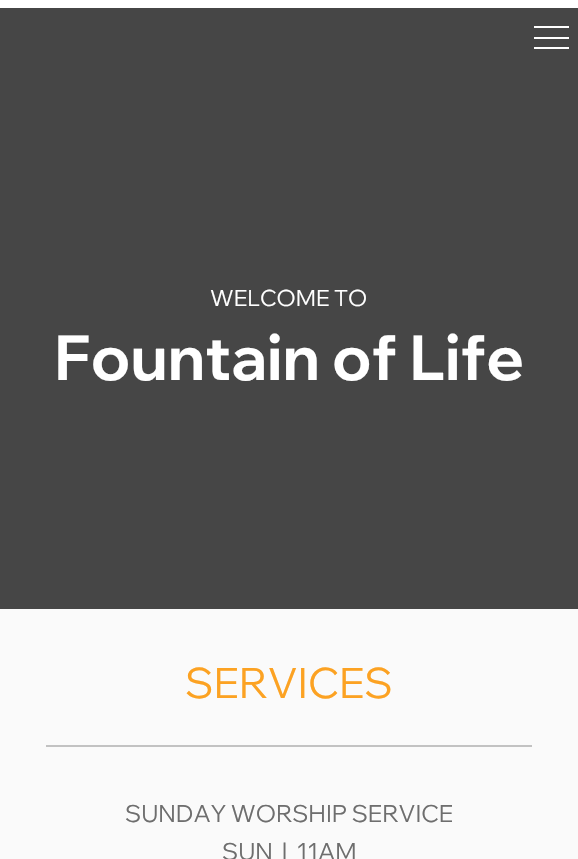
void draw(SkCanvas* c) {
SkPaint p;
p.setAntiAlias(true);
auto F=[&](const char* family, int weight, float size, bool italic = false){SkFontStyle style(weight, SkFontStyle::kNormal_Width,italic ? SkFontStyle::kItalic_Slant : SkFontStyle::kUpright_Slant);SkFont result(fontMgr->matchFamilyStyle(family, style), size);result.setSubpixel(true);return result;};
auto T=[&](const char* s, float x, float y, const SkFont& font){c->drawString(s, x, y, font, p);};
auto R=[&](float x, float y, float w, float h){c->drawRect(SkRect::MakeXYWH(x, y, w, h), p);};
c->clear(0xffffffff);
p.setColor(0xff464646);
R(0,8,578,601);
p.setColor(0xffffffff);
R(534,26,35,2);
R(534,37,35,2);
R(534,47,35,2);
auto f1 = F("Wix Madefor Display",400,22.5);
T("WELCOME TO",210,306,f1);
auto f2 = F("Wix Madefor Display",700,62.25);
T("Fountain of Life",54,380,f2);
p.setColor(0xfffafafa);
R(0,609,578,250);
auto f3 = F("Wix Madefor Display",400,42);
p.setColor(0xfffca222);
T("SERVICES",185,698,f3);
p.setColor(0xffc2c2c2);
R(46,745,486,2);
auto f4 = F("Wix Madefor Display",400,23.75);
p.setColor(0xff6e6e6e);
T("SUNDAY WORSHIP SERVICE",125,822,f4);
T("SUN  |  11AM",222,860,f4);
}
